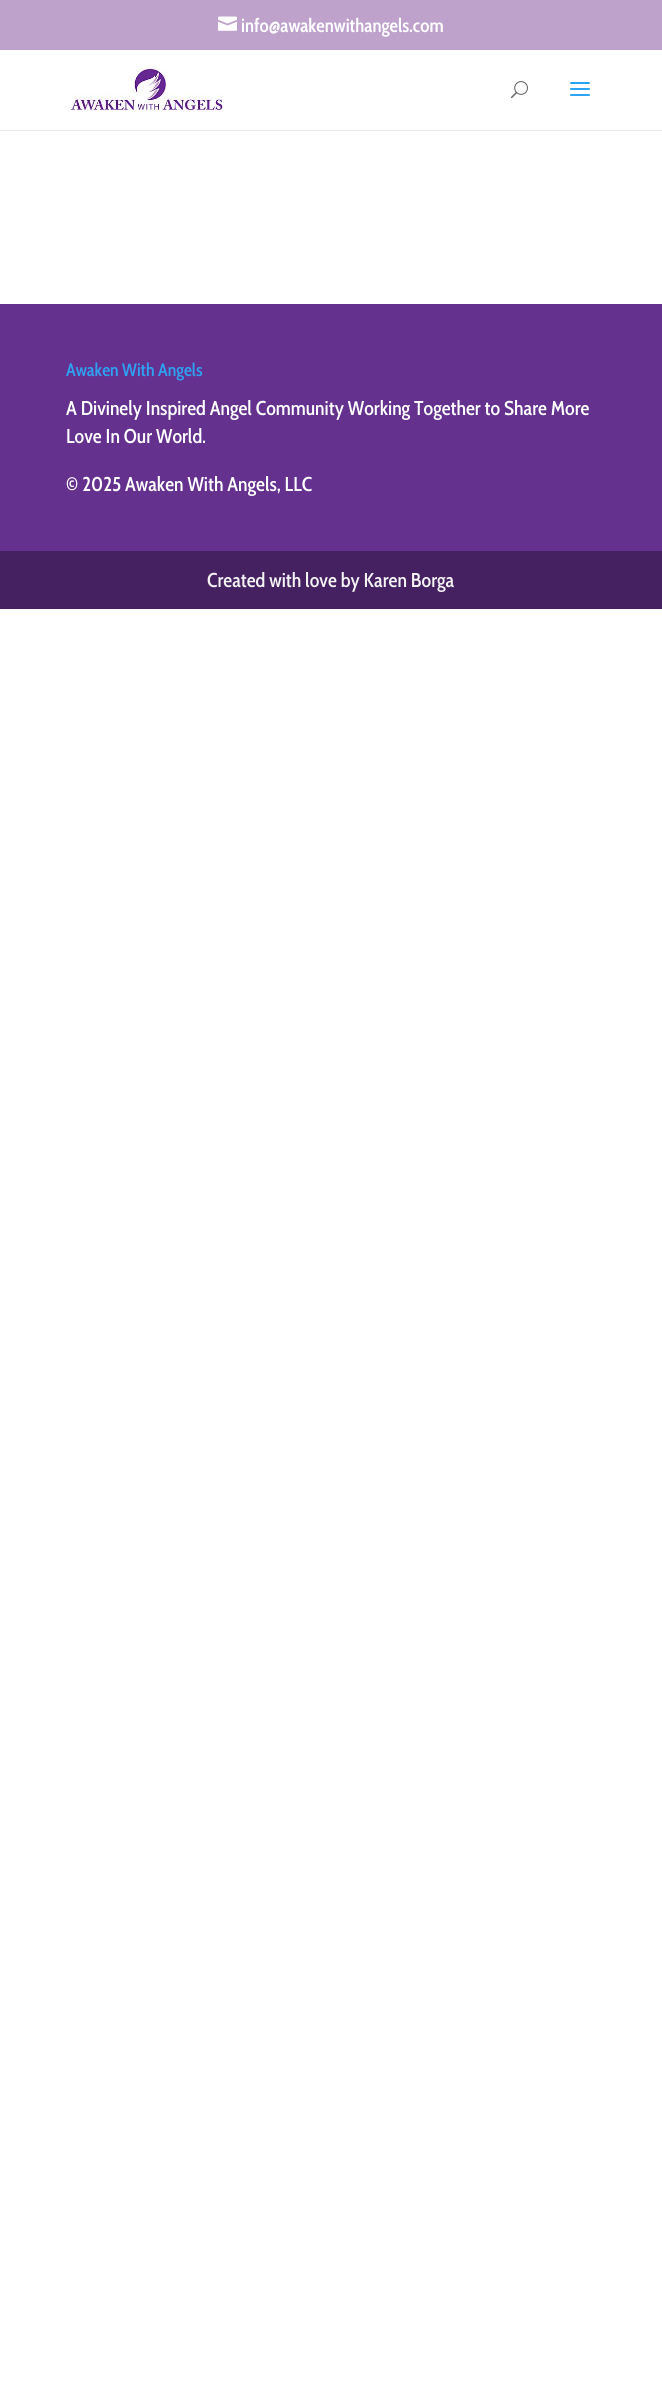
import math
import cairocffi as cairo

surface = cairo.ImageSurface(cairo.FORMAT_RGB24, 662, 2408)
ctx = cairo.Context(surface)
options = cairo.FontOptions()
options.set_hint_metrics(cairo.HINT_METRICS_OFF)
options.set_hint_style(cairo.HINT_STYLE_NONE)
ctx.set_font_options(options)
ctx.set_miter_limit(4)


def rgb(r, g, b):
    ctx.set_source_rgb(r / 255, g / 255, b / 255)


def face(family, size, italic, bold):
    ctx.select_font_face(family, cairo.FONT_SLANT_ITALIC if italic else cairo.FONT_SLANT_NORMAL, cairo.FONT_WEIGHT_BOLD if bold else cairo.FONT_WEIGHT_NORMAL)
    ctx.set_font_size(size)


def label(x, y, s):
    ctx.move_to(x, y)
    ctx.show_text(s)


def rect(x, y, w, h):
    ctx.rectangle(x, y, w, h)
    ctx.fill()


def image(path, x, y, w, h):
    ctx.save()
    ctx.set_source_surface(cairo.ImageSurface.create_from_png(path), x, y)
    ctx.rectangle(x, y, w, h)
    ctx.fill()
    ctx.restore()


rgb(255, 255, 255)
ctx.paint()
rgb(190, 162, 203)
rect(0, 0, 662, 50)
image('image0.png', 218, 16, 19, 15)
face('Cabin Condensed SemiBold', 19, 0, 0)
rgb(255, 255, 255)
label(241, 32, 'info@awakenwithangels.com')
rgb(230, 230, 230)
rect(0, 130, 662, 1)
image('image1.png', 70, 68, 154, 43)
image('image2.png', 511, 81, 17, 18)
image('image3.png', 570, 82, 20, 14)
rgb(101, 49, 143)
rect(0, 304, 662, 247)
face('Cabin Condensed Medium', 18, 0, 0)
rgb(46, 163, 242)
label(66, 376, 'Awaken With Angels')
face('Cabin Condensed Medium', 20, 0, 0)
rgb(255, 255, 255)
label(66, 415, 'A Divinely Inspired Angel Community Working Together to Share More')
label(66, 443, 'Love In Our World.')
label(66, 491, '© 2025 Awaken With Angels, LLC')
rgb(69, 33, 97)
rect(0, 551, 662, 58)
rgb(244, 244, 244)
label(207, 587, 'Created with love by Karen Borga')
surface.write_to_png('render.png')
